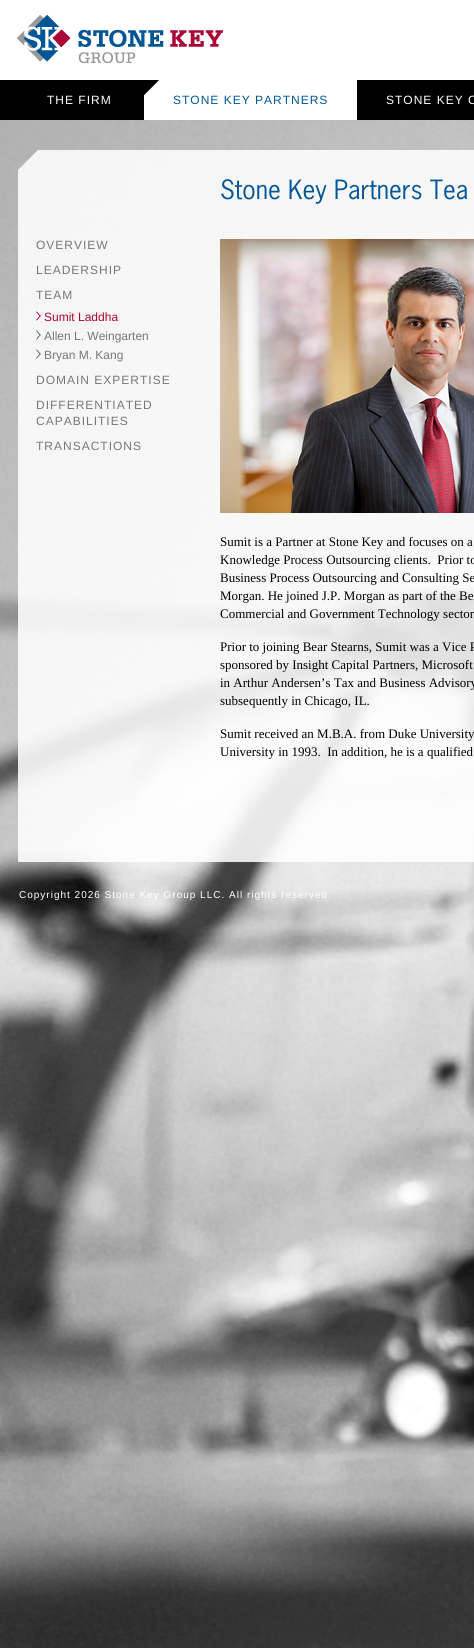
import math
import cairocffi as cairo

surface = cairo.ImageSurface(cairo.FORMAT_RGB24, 474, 1648)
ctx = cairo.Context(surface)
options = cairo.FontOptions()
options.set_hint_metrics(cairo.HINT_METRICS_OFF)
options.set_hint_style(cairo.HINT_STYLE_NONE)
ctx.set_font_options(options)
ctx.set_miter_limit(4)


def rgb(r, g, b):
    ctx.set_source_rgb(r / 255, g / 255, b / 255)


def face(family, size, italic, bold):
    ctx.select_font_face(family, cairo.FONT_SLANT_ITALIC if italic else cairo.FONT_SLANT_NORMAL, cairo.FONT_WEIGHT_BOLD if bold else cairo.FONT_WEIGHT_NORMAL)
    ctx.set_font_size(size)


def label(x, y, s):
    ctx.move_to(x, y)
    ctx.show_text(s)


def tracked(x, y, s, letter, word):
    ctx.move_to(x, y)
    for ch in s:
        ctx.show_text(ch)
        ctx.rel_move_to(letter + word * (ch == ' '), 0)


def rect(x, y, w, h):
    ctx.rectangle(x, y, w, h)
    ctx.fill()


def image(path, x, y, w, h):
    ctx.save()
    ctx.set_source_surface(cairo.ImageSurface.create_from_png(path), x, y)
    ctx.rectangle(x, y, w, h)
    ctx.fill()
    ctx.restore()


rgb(255, 255, 255)
ctx.paint()
image('image0.png', 17, 15, 206, 48)
rgb(0, 0, 0)
rect(0, 80, 474, 40)
face('Liberation Sans', 12, 0, 0)
rgb(255, 255, 255)
tracked(47, 104, 'THE FIRM', 1, 0)
image('image1.png', 144, 80, 213, 40)
rgb(0, 86, 150)
tracked(173, 104, 'STONE KEY PARTNERS', 1, 0)
rgb(255, 255, 255)
tracked(386, 104, 'STONE KEY C', 1, 0)
image('image7.png', 0, 120, 474, 1528)
image('image2.png', 18, 150, 456, 712)
rgb(119, 119, 119)
tracked(36, 249, 'OVERVIEW', 1, 0)
tracked(36, 274, 'LEADERSHIP', 1, 0)
tracked(36, 299, 'TEAM', 1, 0)
image('image3.png', 36, 311, 5, 10)
rgb(171, 5, 52)
label(44, 321, 'Sumit Laddha')
image('image4.png', 36, 330, 5, 10)
rgb(119, 119, 119)
label(44, 340, 'Allen L. Weingarten')
image('image5.png', 36, 349, 5, 10)
label(44, 359, 'Bryan M. Kang')
tracked(36, 384, 'DOMAIN EXPERTISE', 1, 0)
tracked(36, 409, 'DIFFERENTIATED', 1, 0)
tracked(36, 425, 'CAPABILITIES', 1, 0)
tracked(36, 450, 'TRANSACTIONS', 1, 0)
face('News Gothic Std', 25, 0, 0)
rgb(0, 86, 150)
label(220, 199, 'Stone Key Partners Tea')
image('image6.png', 220, 239, 254, 274)
face('Liberation Serif', 13, 0, 0)
rgb(0, 0, 0)
label(220, 546, 'Sumit is a Partner at Stone Key and focuses on a')
label(220, 564, 'Knowledge Process Outsourcing clients.  Prior to')
label(220, 582, 'Business Process Outsourcing and Consulting Se')
label(220, 600, 'Morgan. He joined J.P. Morgan as part of the Be')
label(220, 618, 'Commercial and Government Technology sector')
label(220, 651, 'Prior to joining Bear Stearns, Sumit was a Vice P')
label(220, 669, 'sponsored by Insight Capital Partners, Microsoft')
label(220, 687, 'in Arthur Andersen’s Tax and Business Advisory')
label(220, 705, 'subsequently in Chicago, IL.')
label(220, 738, 'Sumit received an M.B.A. from Duke University')
label(220, 756, 'University in 1993.  In addition, he is a qualified')
face('Liberation Sans', 10, 0, 0)
rgb(255, 255, 255)
tracked(19, 898, 'Copyright 2026 Stone Key Group LLC. All rights reserved.', 1, 0)
surface.write_to_png('render.png')
